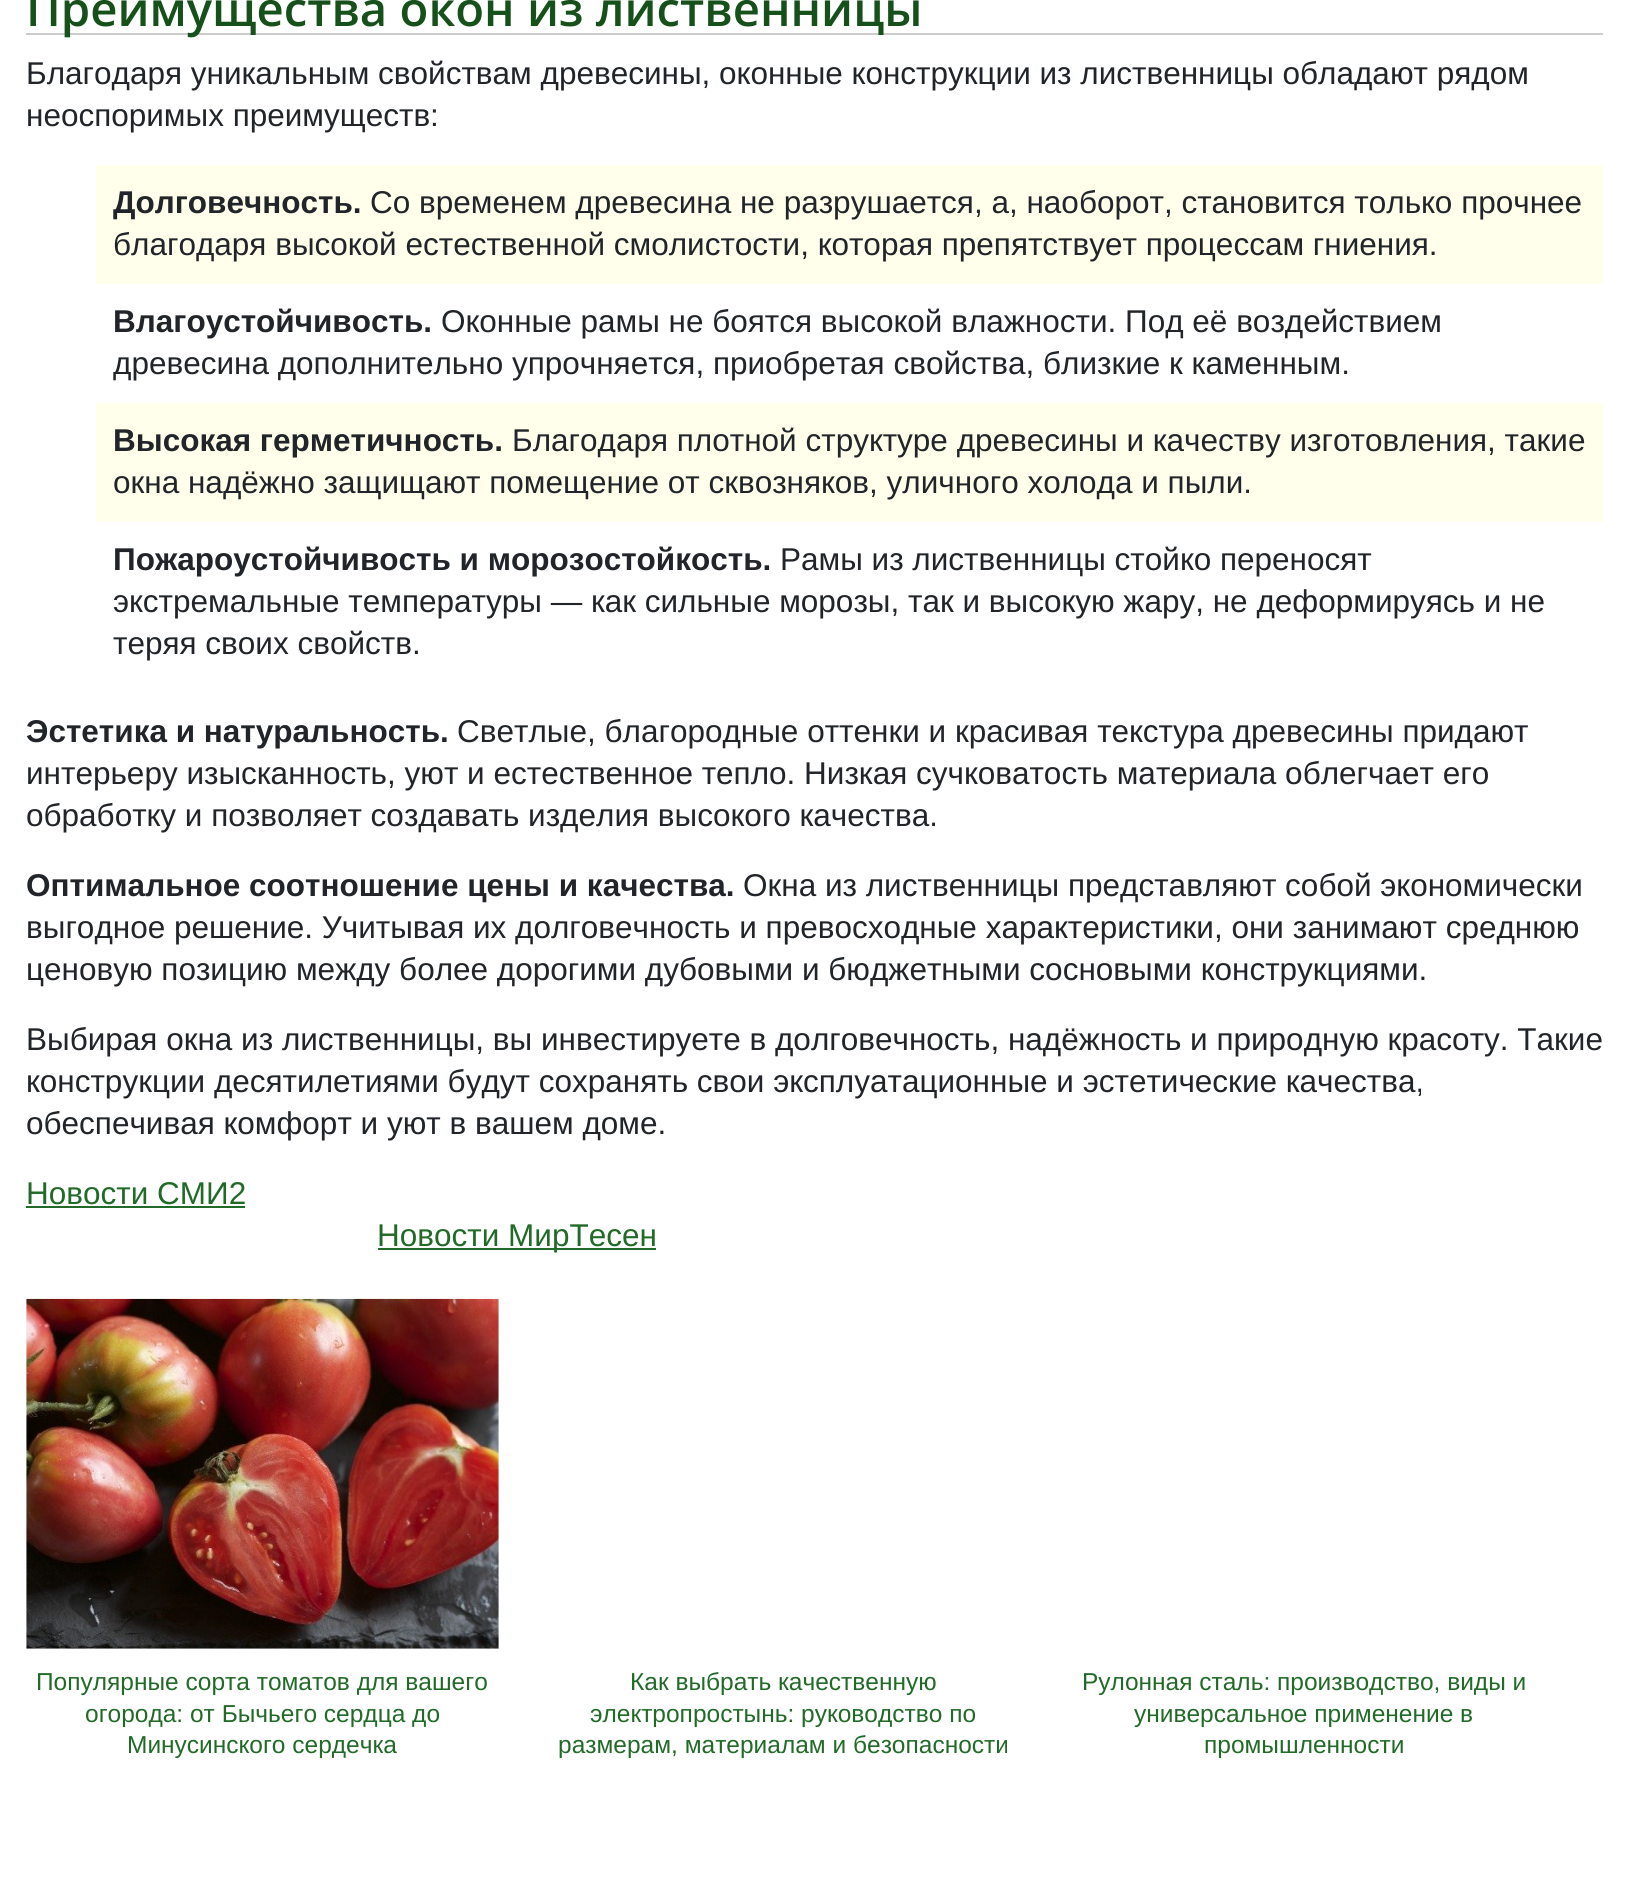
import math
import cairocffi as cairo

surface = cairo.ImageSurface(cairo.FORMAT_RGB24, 1628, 1889)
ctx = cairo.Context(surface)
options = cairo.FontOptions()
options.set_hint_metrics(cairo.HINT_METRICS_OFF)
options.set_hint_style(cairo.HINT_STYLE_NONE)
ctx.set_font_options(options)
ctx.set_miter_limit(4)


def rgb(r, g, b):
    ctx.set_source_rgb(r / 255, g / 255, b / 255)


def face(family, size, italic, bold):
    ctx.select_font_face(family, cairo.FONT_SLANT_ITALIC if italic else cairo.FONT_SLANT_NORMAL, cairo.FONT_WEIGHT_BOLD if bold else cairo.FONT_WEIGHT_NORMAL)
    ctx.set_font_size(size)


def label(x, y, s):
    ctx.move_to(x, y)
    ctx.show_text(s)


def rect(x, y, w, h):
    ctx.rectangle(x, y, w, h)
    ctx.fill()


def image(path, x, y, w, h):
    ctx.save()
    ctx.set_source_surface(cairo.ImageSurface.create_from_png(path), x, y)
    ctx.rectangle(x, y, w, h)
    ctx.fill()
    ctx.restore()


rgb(255, 255, 255)
ctx.paint()
rgb(204, 204, 204)
rect(26, 33, 1577, 2)
face('Open Sans SemiBold', 47.25, 0, 0)
rgb(22, 80, 27)
label(26, 26, 'Преимущества окон из лиственницы')
face('Liberation Sans', 31.5, 0, 0)
rgb(33, 37, 41)
label(26, 84, 'Благодаря уникальным свойствам древесины, оконные конструкции из лиственницы обладают рядом')
label(26, 126, 'неоспоримых преимуществ:')
rgb(255, 255, 236)
rect(96, 165, 1507, 119)
face('Liberation Sans', 31.5, 0, 1)
rgb(33, 37, 41)
label(113, 213, 'Долговечность.')
face('Liberation Sans', 31.5, 0, 0)
label(370, 213, 'Со временем древесина не разрушается, а, наоборот, становится только прочнее')
label(113, 255, 'благодаря высокой естественной смолистости, которая препятствует процессам гниения.')
face('Liberation Sans', 31.5, 0, 1)
label(113, 332, 'Влагоустойчивость.')
face('Liberation Sans', 31.5, 0, 0)
label(441, 332, 'Оконные рамы не боятся высокой влажности. Под её воздействием')
label(113, 374, 'древесина дополнительно упрочняется, приобретая свойства, близкие к каменным.')
rgb(255, 255, 236)
rect(96, 403, 1507, 119)
face('Liberation Sans', 31.5, 0, 1)
rgb(33, 37, 41)
label(113, 451, 'Высокая герметичность.')
face('Liberation Sans', 31.5, 0, 0)
label(512, 451, 'Благодаря плотной структуре древесины и качеству изготовления, такие')
label(113, 493, 'окна надёжно защищают помещение от сквозняков, уличного холода и пыли.')
face('Liberation Sans', 31.5, 0, 1)
label(113, 570, 'Пожароустойчивость и морозостойкость.')
face('Liberation Sans', 31.5, 0, 0)
label(780, 570, 'Рамы из лиственницы стойко переносят')
label(113, 612, 'экстремальные температуры — как сильные морозы, так и высокую жару, не деформируясь и не')
label(113, 654, 'теряя своих свойств.')
face('Liberation Sans', 31.5, 0, 1)
label(26, 742, 'Эстетика и натуральность.')
face('Liberation Sans', 31.5, 0, 0)
label(457, 742, 'Светлые, благородные оттенки и красивая текстура древесины придают')
label(26, 784, 'интерьеру изысканность, уют и естественное тепло. Низкая сучковатость материала облегчает его')
label(26, 826, 'обработку и позволяет создавать изделия высокого качества.')
face('Liberation Sans', 31.5, 0, 1)
label(26, 896, 'Оптимальное соотношение цены и качества.')
face('Liberation Sans', 31.5, 0, 0)
label(743, 896, 'Окна из лиственницы представляют собой экономически')
label(26, 938, 'выгодное решение. Учитывая их долговечность и превосходные характеристики, они занимают среднюю')
label(26, 980, 'ценовую позицию между более дорогими дубовыми и бюджетными сосновыми конструкциями.')
label(26, 1050, 'Выбирая окна из лиственницы, вы инвестируете в долговечность, надёжность и природную красоту. Такие')
label(26, 1092, 'конструкции десятилетиями будут сохранять свои эксплуатационные и эстетические качества,')
label(26, 1134, 'обеспечивая комфорт и уют в вашем доме.')
rgb(34, 106, 40)
label(26, 1204, 'Новости СМИ2')
rect(26, 1206, 219, 2)
rect(378, 1248, 278, 2)
label(377, 1246, 'Новости МирТесен')
image('image0.png', 26, 1298, 473, 351)
face('Liberation Sans', 24.5, 0, 0)
label(36, 1690, 'Популярные сорта томатов для вашего')
label(85, 1722, 'огорода: от Бычьего сердца до')
label(127, 1753, 'Минусинского сердечка')
label(630, 1690, 'Как выбрать качественную')
label(590, 1722, 'электропростынь: руководство по')
label(558, 1753, 'размерам, материалам и безопасности')
label(1082, 1690, 'Рулонная сталь: производство, виды и')
label(1134, 1722, 'универсальное применение в')
label(1204, 1753, 'промышленности')
surface.write_to_png('render.png')
